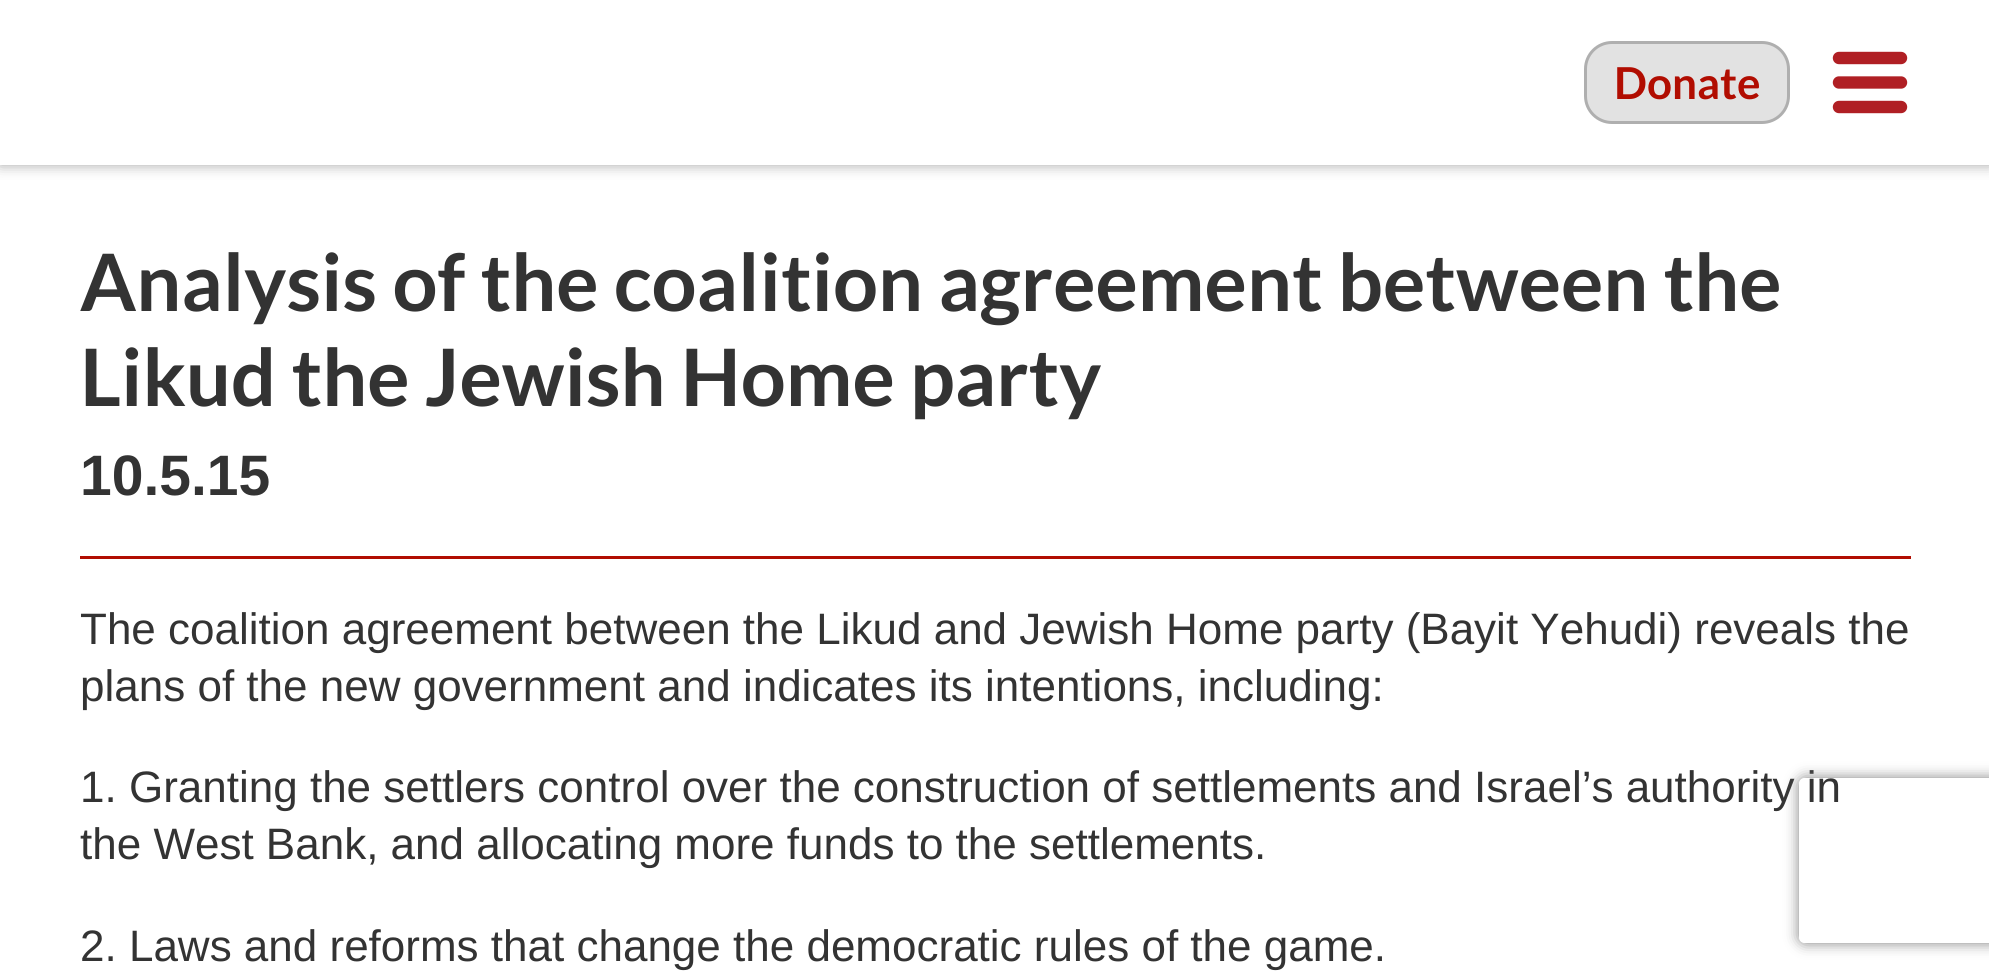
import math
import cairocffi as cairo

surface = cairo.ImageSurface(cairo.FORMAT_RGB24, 1989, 980)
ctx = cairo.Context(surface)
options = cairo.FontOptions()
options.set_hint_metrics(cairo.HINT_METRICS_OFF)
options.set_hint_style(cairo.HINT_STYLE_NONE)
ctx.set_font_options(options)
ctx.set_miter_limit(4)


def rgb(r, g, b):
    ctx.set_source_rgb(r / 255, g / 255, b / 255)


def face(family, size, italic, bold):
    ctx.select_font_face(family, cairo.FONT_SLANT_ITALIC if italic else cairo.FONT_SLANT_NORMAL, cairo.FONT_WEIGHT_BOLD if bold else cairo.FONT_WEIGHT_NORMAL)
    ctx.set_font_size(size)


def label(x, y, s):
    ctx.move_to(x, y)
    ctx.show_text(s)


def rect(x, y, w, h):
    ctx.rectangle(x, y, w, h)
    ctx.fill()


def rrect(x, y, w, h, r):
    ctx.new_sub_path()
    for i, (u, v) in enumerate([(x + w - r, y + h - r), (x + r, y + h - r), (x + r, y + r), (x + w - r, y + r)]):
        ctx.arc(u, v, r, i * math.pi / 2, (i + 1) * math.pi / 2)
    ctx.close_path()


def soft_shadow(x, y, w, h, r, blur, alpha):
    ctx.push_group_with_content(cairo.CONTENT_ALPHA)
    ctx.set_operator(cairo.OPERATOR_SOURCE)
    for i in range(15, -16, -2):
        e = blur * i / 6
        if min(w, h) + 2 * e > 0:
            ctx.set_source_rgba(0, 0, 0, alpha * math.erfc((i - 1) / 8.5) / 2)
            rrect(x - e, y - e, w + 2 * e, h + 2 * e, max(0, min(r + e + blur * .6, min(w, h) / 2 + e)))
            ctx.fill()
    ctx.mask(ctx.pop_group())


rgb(255, 255, 255)
ctx.paint()
rgb(0, 0, 0)
soft_shadow(0, 0, 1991, 165, 0, 7, 0.35)
rgb(255, 255, 255)
rect(0, 0, 1989, 165)
rgb(226, 226, 226)
rrect(1585.5, 42.5, 203, 80, 26.5)
ctx.fill_preserve()
rgb(175, 175, 175)
ctx.set_line_width(3)
ctx.stroke()
face('Lato', 44, 0, 1)
rgb(177, 13, 1)
label(1614, 99, 'Donate')
ctx.new_path()
ctx.move_to(1839, 58)
ctx.line_to(1901, 58)
rgb(176, 31, 36)
ctx.set_line_width(12.4)
ctx.set_line_cap(cairo.LINE_CAP_ROUND)
ctx.stroke()
ctx.new_path()
ctx.move_to(1839, 82.5)
ctx.line_to(1901, 82.5)
ctx.stroke()
ctx.new_path()
ctx.move_to(1839, 107)
ctx.line_to(1901, 107)
ctx.stroke()
face('Lato', 79.2, 0, 1)
rgb(51, 51, 51)
label(80, 311, 'Analysis of the coalition agreement between the')
label(80, 406, 'Likud the Jewish Home party')
face('Liberation Sans', 57, 0, 1)
label(80, 495, '10.5.15')
rgb(177, 13, 1)
rect(80, 556, 1831, 3)
face('Liberation Sans', 44, 0, 0)
rgb(51, 51, 51)
label(80, 644, 'The coalition agreement between the Likud and Jewish Home party (Bayit Yehudi) reveals the')
label(80, 701, 'plans of the new government and indicates its intentions, including:')
label(80, 802, '1. Granting the settlers control over the construction of settlements and Israel’s authority in')
label(80, 859, 'the West Bank, and allocating more funds to the settlements.')
label(80, 961, '2. Laws and reforms that change the democratic rules of the game.')
ctx.save()
ctx.set_fill_rule(cairo.FILL_RULE_EVEN_ODD)
ctx.new_path()
ctx.move_to(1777, 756)
ctx.line_to(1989, 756)
ctx.line_to(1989, 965)
ctx.line_to(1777, 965)
ctx.close_path()
ctx.move_to(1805, 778)
ctx.line_to(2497, 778)
ctx.curve_to(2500.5, 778, 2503, 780.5, 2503, 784)
ctx.line_to(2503, 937)
ctx.curve_to(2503, 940.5, 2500.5, 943, 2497, 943)
ctx.line_to(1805, 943)
ctx.curve_to(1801.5, 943, 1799, 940.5, 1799, 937)
ctx.line_to(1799, 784)
ctx.curve_to(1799, 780.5, 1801.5, 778, 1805, 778)
ctx.close_path()
ctx.clip()
rgb(128, 128, 128)
soft_shadow(1799, 778, 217, 165, 6, 7, 1)
ctx.restore()
surface.write_to_png('render.png')
